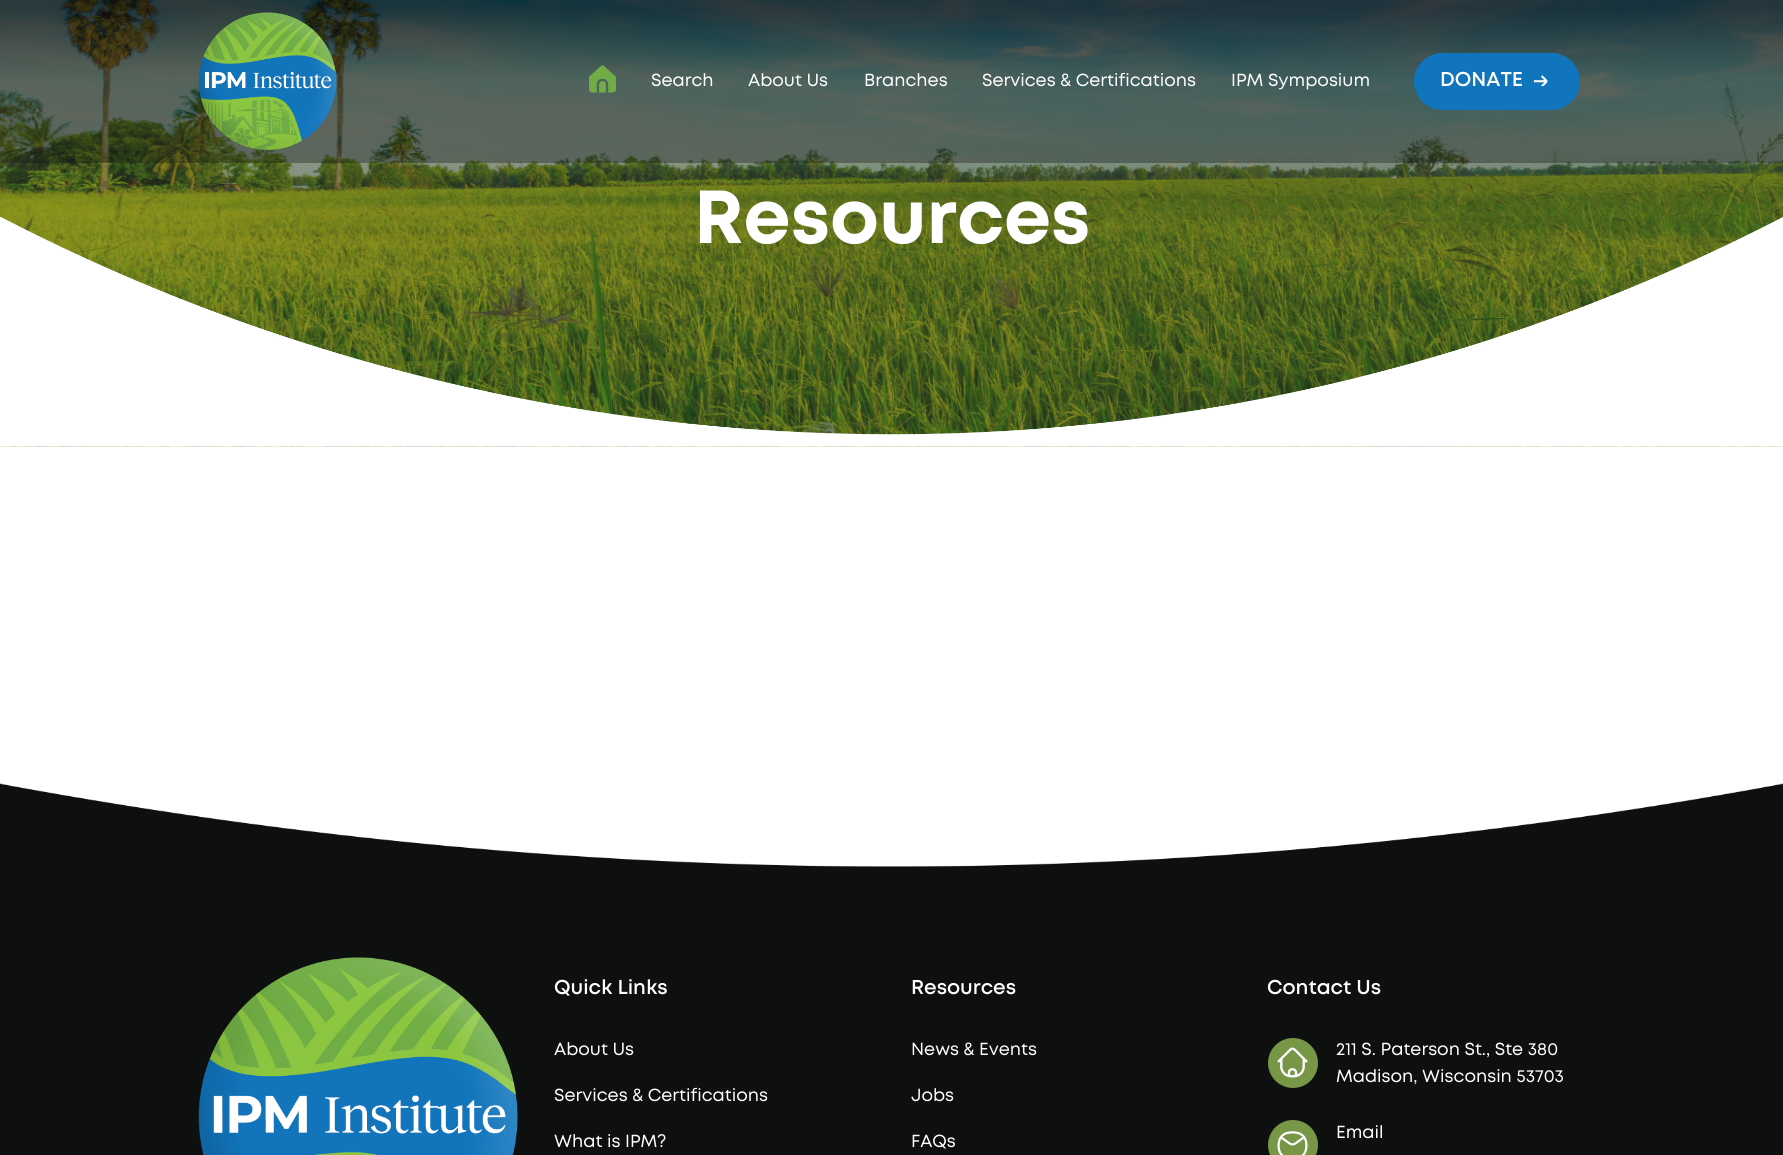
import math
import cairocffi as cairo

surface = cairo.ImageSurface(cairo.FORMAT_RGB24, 1783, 1155)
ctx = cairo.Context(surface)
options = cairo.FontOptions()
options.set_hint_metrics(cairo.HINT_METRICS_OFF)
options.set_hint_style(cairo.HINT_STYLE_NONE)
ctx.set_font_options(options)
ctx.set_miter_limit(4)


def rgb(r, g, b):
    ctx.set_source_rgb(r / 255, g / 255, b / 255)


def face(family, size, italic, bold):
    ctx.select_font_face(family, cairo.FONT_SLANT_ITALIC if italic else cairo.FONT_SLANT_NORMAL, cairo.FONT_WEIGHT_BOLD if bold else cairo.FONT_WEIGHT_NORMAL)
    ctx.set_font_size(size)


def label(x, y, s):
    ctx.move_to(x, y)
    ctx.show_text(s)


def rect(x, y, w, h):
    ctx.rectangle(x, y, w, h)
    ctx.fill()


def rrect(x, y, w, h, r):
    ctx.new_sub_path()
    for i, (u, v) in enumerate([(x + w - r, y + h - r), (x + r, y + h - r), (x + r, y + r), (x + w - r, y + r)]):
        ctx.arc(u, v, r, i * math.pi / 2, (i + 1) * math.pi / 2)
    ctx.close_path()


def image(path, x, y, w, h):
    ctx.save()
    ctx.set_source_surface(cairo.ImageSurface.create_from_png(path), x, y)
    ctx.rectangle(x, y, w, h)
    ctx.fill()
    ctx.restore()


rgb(255, 255, 255)
ctx.paint()
image('image3.png', 0, 0, 1783, 447)
ctx.set_source_rgba(0.055, 0.059, 0.059, 0.35)
rect(0, 0, 1783, 163)
image('image0.png', 198, 12, 139, 138)
image('image1.png', 589, 65, 27, 28)
face('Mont', 17.5, 0, 0)
rgb(255, 255, 255)
label(651, 86, 'Search')
label(748, 86, 'About Us')
label(864, 86, 'Branches')
label(982, 86, 'Services & Certifications')
label(1231, 86, 'IPM Symposium')
rgb(16, 117, 189)
rrect(1414.5, 53.5, 165, 56, 28)
ctx.fill_preserve()
ctx.set_line_width(1)
ctx.stroke()
face('Mont SemiBold', 20, 0, 0)
rgb(255, 255, 255)
label(1440, 86, 'DONATE')
image('image2.png', 1533, 75, 15, 11)
face('Mont', 75, 0, 1)
label(694, 243, 'Resources')
image('image4.png', 0, 216, 1783, 231)
image('image5.png', 0, 783, 1783, 120)
rgb(14, 15, 15)
rect(0, 903, 1783, 252)
image('image6.png', 198, 957, 320, 198)
face('Mont SemiBold', 20, 0, 0)
rgb(255, 255, 255)
label(554, 994, 'Quick Links')
face('Mont', 17.5, 0, 0)
label(554, 1055, 'About Us')
label(554, 1101, 'Services & Certifications')
label(554, 1147, 'What is IPM?')
face('Mont SemiBold', 20, 0, 0)
label(911, 994, 'Resources')
face('Mont', 17.5, 0, 0)
label(911, 1055, 'News & Events')
label(911, 1101, 'Jobs')
label(911, 1147, 'FAQs')
face('Mont SemiBold', 20, 0, 0)
label(1267, 994, 'Contact Us')
image('image7.png', 1268, 1038, 50, 50)
face('Mont', 17.5, 0, 0)
label(1336, 1055, '211 S. Paterson St., Ste 380')
label(1336, 1082, 'Madison, Wisconsin 53703')
image('image8.png', 1268, 1120, 50, 35)
label(1336, 1138, 'Email')
surface.write_to_png('render.png')
